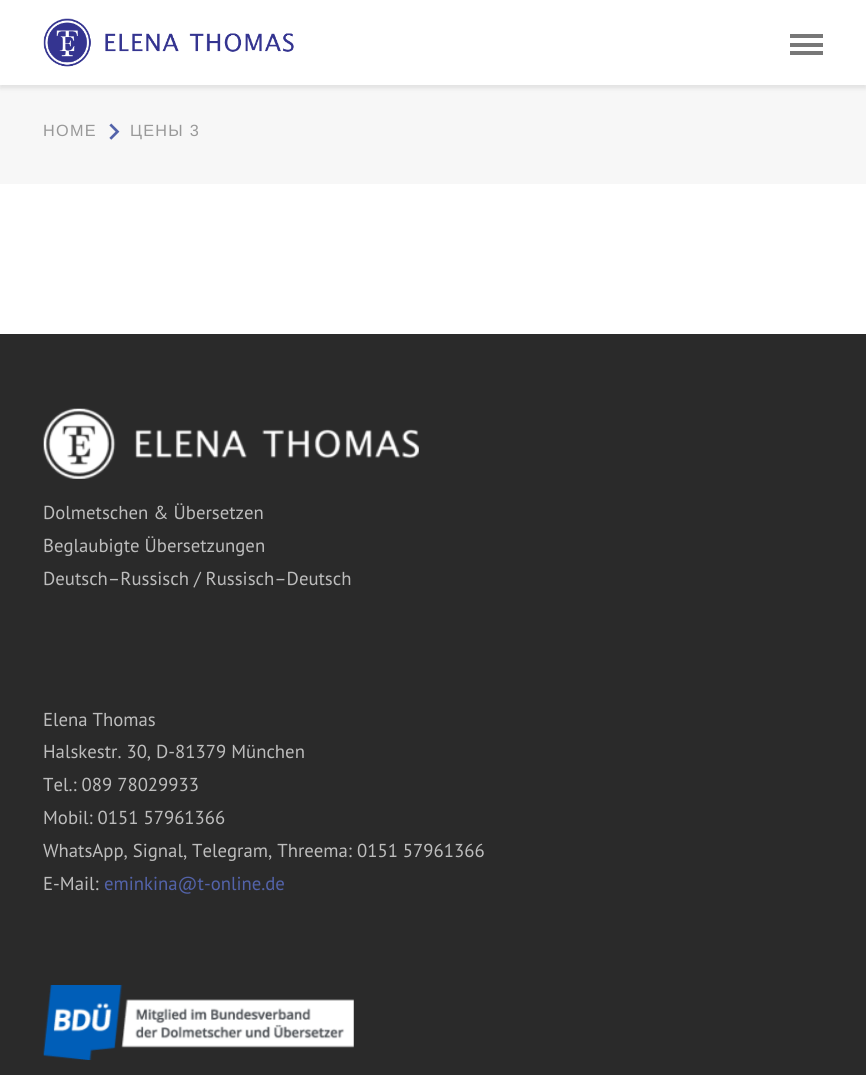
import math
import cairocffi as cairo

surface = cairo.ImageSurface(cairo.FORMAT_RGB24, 866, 1075)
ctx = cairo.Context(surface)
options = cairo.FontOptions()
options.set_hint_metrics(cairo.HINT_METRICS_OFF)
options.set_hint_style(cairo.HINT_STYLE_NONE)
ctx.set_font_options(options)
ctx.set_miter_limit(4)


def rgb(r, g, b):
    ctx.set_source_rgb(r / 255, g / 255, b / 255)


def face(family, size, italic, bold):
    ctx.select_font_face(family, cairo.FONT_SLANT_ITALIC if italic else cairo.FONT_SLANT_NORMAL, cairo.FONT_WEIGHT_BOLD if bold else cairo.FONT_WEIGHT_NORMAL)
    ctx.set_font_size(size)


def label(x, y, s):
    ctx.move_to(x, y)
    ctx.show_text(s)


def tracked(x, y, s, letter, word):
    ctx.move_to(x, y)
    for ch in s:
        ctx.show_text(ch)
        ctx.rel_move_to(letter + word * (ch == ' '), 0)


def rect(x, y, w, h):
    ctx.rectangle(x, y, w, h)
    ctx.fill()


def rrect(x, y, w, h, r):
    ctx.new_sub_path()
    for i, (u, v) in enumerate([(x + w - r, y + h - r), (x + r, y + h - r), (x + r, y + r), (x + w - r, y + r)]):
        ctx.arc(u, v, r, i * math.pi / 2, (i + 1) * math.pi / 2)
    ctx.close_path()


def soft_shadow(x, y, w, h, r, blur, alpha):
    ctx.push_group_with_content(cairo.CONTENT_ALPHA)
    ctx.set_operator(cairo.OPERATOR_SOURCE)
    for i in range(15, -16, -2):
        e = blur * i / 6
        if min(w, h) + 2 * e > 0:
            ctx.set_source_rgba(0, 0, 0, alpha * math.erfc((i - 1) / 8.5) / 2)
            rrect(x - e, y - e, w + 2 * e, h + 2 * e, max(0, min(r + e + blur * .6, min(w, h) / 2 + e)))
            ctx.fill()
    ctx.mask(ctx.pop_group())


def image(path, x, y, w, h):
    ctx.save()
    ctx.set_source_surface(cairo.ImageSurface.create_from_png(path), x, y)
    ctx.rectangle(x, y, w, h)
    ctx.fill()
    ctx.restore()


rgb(255, 255, 255)
ctx.paint()
rgb(247, 247, 247)
rect(0, 85, 866, 99)
rgb(0, 0, 0)
soft_shadow(0, 3, 866, 85, 0, 2.5, 0.1)
rgb(255, 255, 255)
rect(0, 0, 866, 85)
image('image0.png', 43, 18, 251, 49)
rgb(119, 119, 119)
rect(790, 34, 33, 4)
rect(790, 43, 33, 4)
rect(790, 51, 33, 4)
face('Liberation Sans', 16.25, 0, 0)
rgb(153, 153, 153)
tracked(43, 136, 'HOME', 1.25, 0)
image('image1.png', 109, 123, 11, 17)
tracked(130, 136, 'ЦЕНЫ 3', 1.25, 0)
rgb(42, 42, 42)
rect(0, 334, 866, 741)
image('image2.png', 43, 408, 376, 71)
face('PT Sans', 18.75, 0, 0)
rgb(189, 189, 189)
label(43, 519, 'Dolmetschen & Übersetzen')
label(43, 552, 'Beglaubigte Übersetzungen')
label(43, 585, 'Deutsch–Russisch / Russisch–Deutsch')
label(43, 726, 'Elena Thomas')
label(43, 758, 'Halskestr. 30, D-81379 München')
label(43, 791, 'Tel.: 089 78029933')
label(43, 824, 'Mobil: 0151 57961366')
label(43, 857, 'WhatsApp, Signal, Telegram, Threema: 0151 57961366')
label(43, 890, 'E-Mail:')
rgb(83, 99, 170)
label(104, 890, 'eminkina@t-online.de')
image('image3.png', 43, 985, 311, 75)
surface.write_to_png('render.png')
